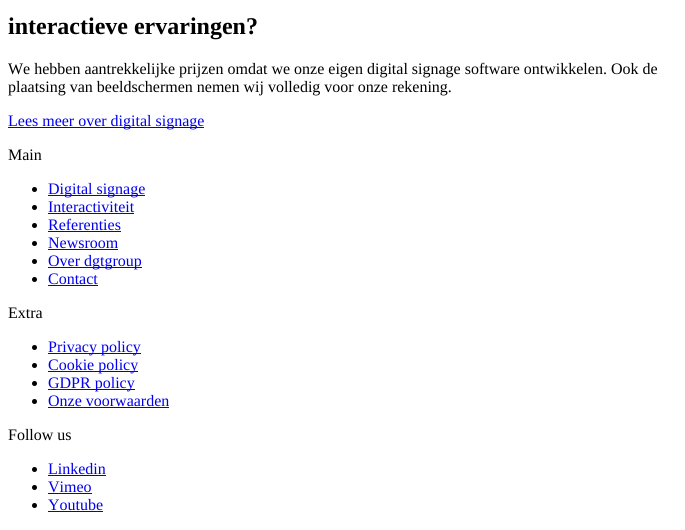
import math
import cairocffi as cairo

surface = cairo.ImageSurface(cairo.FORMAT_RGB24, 685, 530)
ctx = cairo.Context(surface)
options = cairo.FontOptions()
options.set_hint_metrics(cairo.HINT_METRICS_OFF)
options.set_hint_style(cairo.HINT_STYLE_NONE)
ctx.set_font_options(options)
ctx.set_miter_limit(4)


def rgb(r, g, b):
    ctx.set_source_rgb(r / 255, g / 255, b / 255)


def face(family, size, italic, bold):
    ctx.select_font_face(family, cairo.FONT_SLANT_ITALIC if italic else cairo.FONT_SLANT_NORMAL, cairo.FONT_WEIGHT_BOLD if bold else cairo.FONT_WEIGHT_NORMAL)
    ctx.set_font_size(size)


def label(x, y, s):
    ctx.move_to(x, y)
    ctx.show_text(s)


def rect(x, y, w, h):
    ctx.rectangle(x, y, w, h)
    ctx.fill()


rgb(255, 255, 255)
ctx.paint()
face('Liberation Serif', 24, 0, 1)
rgb(0, 0, 0)
label(8, 34, 'interactieve ervaringen?')
face('Liberation Serif', 16, 0, 0)
label(8, 74, 'We hebben aantrekkelijke prijzen omdat we onze eigen digital signage software ontwikkelen. Ook de')
label(8, 92, 'plaatsing van beeldschermen nemen wij volledig voor onze rekening.')
rgb(0, 0, 238)
rect(8, 127, 196, 1)
label(8, 126, 'Lees meer over digital signage')
rgb(0, 0, 0)
label(8, 160, 'Main')
ctx.new_path()
ctx.arc(34.5, 189.5, 2.5, 0, 2 * math.pi)
ctx.fill()
rgb(0, 0, 238)
rect(48, 195, 97, 1)
label(48, 194, 'Digital signage')
rgb(0, 0, 0)
ctx.new_path()
ctx.arc(34.5, 207.5, 2.5, 0, 2 * math.pi)
ctx.fill()
rgb(0, 0, 238)
label(48, 212, 'Interactiviteit')
rect(48, 213, 86, 1)
rgb(0, 0, 0)
ctx.new_path()
ctx.arc(34.5, 225.5, 2.5, 0, 2 * math.pi)
ctx.fill()
rgb(0, 0, 238)
label(48, 230, 'Referenties')
rect(48, 231, 73, 1)
rgb(0, 0, 0)
ctx.new_path()
ctx.arc(34.5, 243.5, 2.5, 0, 2 * math.pi)
ctx.fill()
rgb(0, 0, 238)
label(48, 248, 'Newsroom')
rect(48, 249, 70, 1)
rgb(0, 0, 0)
ctx.new_path()
ctx.arc(34.5, 261.5, 2.5, 0, 2 * math.pi)
ctx.fill()
rgb(0, 0, 238)
rect(48, 267, 94, 1)
label(48, 266, 'Over dgtgroup')
rgb(0, 0, 0)
ctx.new_path()
ctx.arc(34.5, 279.5, 2.5, 0, 2 * math.pi)
ctx.fill()
rgb(0, 0, 238)
label(48, 284, 'Contact')
rect(48, 285, 50, 1)
rgb(0, 0, 0)
label(8, 318, 'Extra')
ctx.new_path()
ctx.arc(34.5, 347.5, 2.5, 0, 2 * math.pi)
ctx.fill()
rgb(0, 0, 238)
rect(48, 353, 93, 1)
label(48, 352, 'Privacy policy')
rgb(0, 0, 0)
ctx.new_path()
ctx.arc(34.5, 365.5, 2.5, 0, 2 * math.pi)
ctx.fill()
rgb(0, 0, 238)
rect(48, 371, 90, 1)
label(48, 370, 'Cookie policy')
rgb(0, 0, 0)
ctx.new_path()
ctx.arc(34.5, 383.5, 2.5, 0, 2 * math.pi)
ctx.fill()
rgb(0, 0, 238)
rect(48, 389, 87, 1)
label(48, 388, 'GDPR policy')
rgb(0, 0, 0)
ctx.new_path()
ctx.arc(34.5, 401.5, 2.5, 0, 2 * math.pi)
ctx.fill()
rgb(0, 0, 238)
label(48, 406, 'Onze voorwaarden')
rect(48, 407, 121, 1)
rgb(0, 0, 0)
label(8, 440, 'Follow us')
ctx.new_path()
ctx.arc(34.5, 469.5, 2.5, 0, 2 * math.pi)
ctx.fill()
rgb(0, 0, 238)
label(48, 474, 'Linkedin')
rect(48, 475, 58, 1)
rgb(0, 0, 0)
ctx.new_path()
ctx.arc(34.5, 487.5, 2.5, 0, 2 * math.pi)
ctx.fill()
rgb(0, 0, 238)
label(48, 492, 'Vimeo')
rect(48, 493, 44, 1)
rgb(0, 0, 0)
ctx.new_path()
ctx.arc(34.5, 505.5, 2.5, 0, 2 * math.pi)
ctx.fill()
rgb(0, 0, 238)
label(48, 510, 'Youtube')
rect(48, 511, 55, 1)
surface.write_to_png('render.png')
